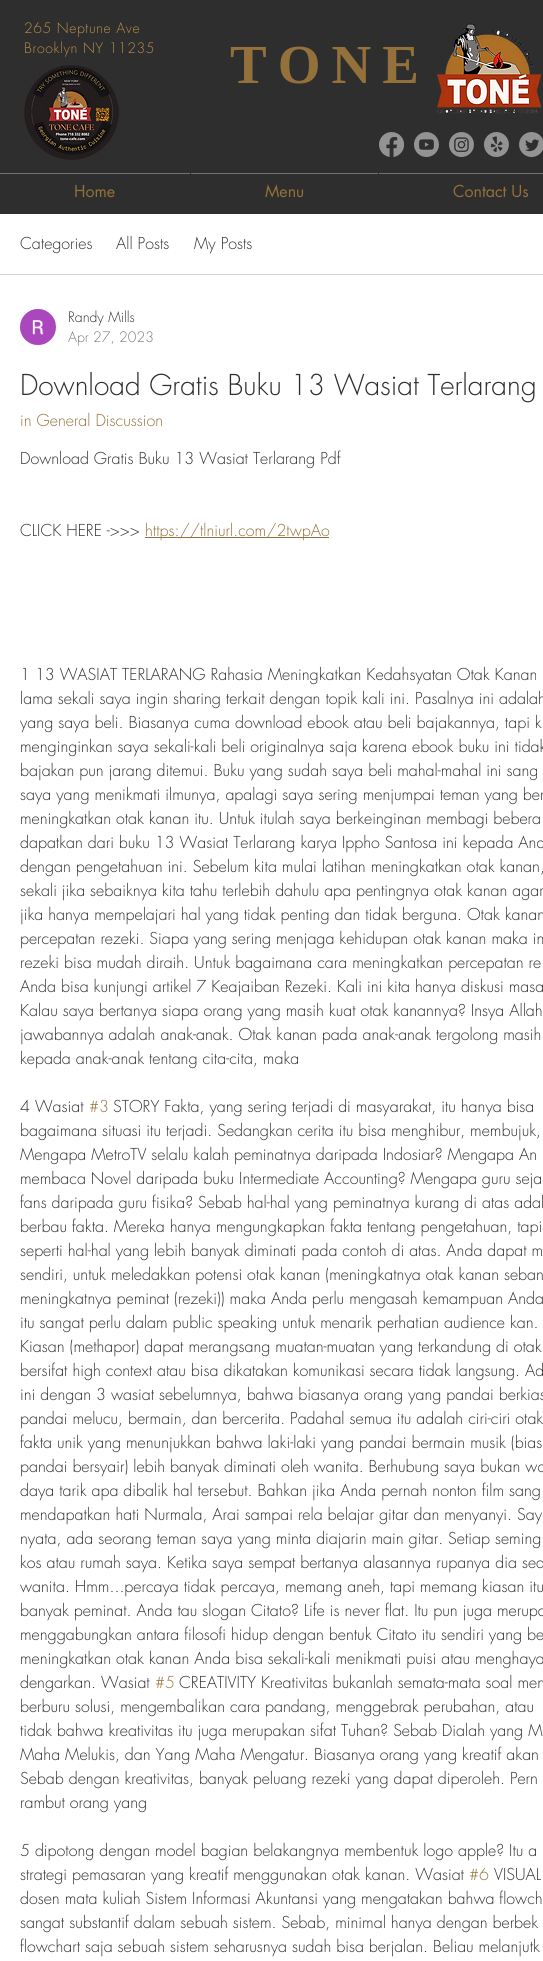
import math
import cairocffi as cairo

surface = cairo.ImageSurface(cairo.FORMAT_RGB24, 543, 1961)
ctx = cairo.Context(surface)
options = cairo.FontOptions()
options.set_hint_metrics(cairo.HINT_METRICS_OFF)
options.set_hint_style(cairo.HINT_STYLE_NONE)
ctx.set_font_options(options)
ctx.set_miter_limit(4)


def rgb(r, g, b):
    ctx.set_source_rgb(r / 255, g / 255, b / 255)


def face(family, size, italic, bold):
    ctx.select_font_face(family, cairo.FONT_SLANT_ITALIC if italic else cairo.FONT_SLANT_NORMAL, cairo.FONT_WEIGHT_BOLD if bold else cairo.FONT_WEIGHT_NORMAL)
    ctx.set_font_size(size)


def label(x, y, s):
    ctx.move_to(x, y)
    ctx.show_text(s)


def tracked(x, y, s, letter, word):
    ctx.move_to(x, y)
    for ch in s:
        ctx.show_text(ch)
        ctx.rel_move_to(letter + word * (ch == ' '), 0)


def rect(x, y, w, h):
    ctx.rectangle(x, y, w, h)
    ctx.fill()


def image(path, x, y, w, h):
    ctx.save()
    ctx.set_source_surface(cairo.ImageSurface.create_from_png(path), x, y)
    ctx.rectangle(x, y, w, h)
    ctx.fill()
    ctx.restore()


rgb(255, 255, 255)
ctx.paint()
rgb(47, 46, 46)
rect(0, 0, 543, 214)
face('futura Light', 14, 0, 0)
rgb(185, 141, 75)
tracked(24, 33, '265 Neptune Ave', 0.6, 0)
tracked(24, 53, 'Brooklyn NY 11235', 0.6, 0)
face('Liberation Serif', 55, 0, 1)
rgb(148, 112, 58)
tracked(230, 83, 'TONE', 11, 0)
image('image0.png', 437, 23, 105, 91)
image('image1.png', 24, 65, 95, 95)
image('image2.png', 379, 132, 25, 25)
image('image3.png', 414, 132, 25, 25)
image('image4.png', 449, 132, 25, 25)
image('image5.png', 484, 132, 25, 25)
image('image6.png', 519, 132, 24, 25)
rgb(115, 114, 114)
rect(0, 173, 543, 1)
face('futura', 16, 0, 0)
rgb(148, 112, 58)
label(74, 197, 'Home')
rgb(47, 46, 46)
rect(190, 173, 1, 1)
rgb(148, 112, 58)
label(265, 197, 'Menu')
rgb(47, 46, 46)
rect(378, 173, 1, 1)
rgb(148, 112, 58)
label(453, 197, 'Contact Us')
rgb(213, 213, 213)
rect(0, 274, 543, 1)
face('futura Light', 16, 0, 0)
rgb(47, 46, 46)
label(20, 249, 'Categories')
label(116, 249, 'All Posts')
label(194, 249, 'My Posts')
image('image7.png', 20, 309, 36, 36)
face('futura Light', 14, 0, 0)
label(68, 322, 'Randy Mills')
rgb(122, 121, 121)
label(68, 342, 'Apr 27, 2023')
face('futura Light', 28, 0, 0)
rgb(47, 46, 46)
label(20, 395, 'Download Gratis Buku 13 Wasiat Terlarang')
face('futura Light', 16, 0, 0)
rgb(148, 112, 58)
label(20, 426, 'in General Discussion')
rgb(47, 46, 46)
label(20, 464, 'Download Gratis Buku 13 Wasiat Terlarang Pdf')
label(20, 536, 'CLICK HERE ->>>')
rgb(148, 112, 58)
rect(145, 537, 184, 1)
label(145, 536, 'https://tlniurl.com/2twpAo')
rgb(47, 46, 46)
label(20, 680, '1 13 WASIAT TERLARANG Rahasia Meningkatkan Kedahsyatan Otak Kanan')
label(20, 704, 'lama sekali saya ingin sharing terkait dengan topik kali ini. Pasalnya ini adalah')
label(20, 728, 'yang saya beli. Biasanya cuma download ebook atau beli bajakannya, tapi k')
label(20, 752, 'menginginkan saya sekali-kali beli originalnya saja karena ebook buku ini tidak')
label(20, 776, 'bajakan pun jarang ditemui. Buku yang sudah saya beli mahal-mahal ini sang')
label(20, 800, 'saya yang menikmati ilmunya, apalagi saya sering menjumpai teman yang ber')
label(20, 824, 'meningkatkan otak kanan itu. Untuk itulah saya berkeinginan membagi bebera')
label(20, 848, 'dapatkan dari buku 13 Wasiat Terlarang karya Ippho Santosa ini kepada And')
label(20, 872, 'dengan pengetahuan ini. Sebelum kita mulai latihan meningkatkan otak kanan,')
label(20, 896, 'sekali jika sebaiknya kita tahu terlebih dahulu apa pentingnya otak kanan agar')
label(20, 920, 'jika hanya mempelajari hal yang tidak penting dan tidak berguna. Otak kanan')
label(20, 944, 'percepatan rezeki. Siapa yang sering menjaga kehidupan otak kanan maka in')
label(20, 968, 'rezeki bisa mudah diraih. Untuk bagaimana cara meningkatkan percepatan re')
label(20, 992, 'Anda bisa kunjungi artikel 7 Keajaiban Rezeki. Kali ini kita hanya diskusi masa')
label(20, 1016, 'Kalau saya bertanya siapa orang yang masih kuat otak kanannya? Insya Allah')
label(20, 1040, 'jawabannya adalah anak-anak. Otak kanan pada anak-anak tergolong masih')
label(20, 1064, 'kepada anak-anak tentang cita-cita, maka')
label(20, 1112, '4 Wasiat')
rgb(148, 112, 58)
label(89, 1112, '#3')
rgb(47, 46, 46)
label(113, 1112, 'STORY Fakta, yang sering terjadi di masyarakat, itu hanya bisa')
label(20, 1136, 'bagaimana situasi itu terjadi. Sedangkan cerita itu bisa menghibur, membujuk,')
label(20, 1160, 'Mengapa MetroTV selalu kalah peminatnya daripada Indosiar? Mengapa An')
label(20, 1184, 'membaca Novel daripada buku Intermediate Accounting? Mengapa guru seja')
label(20, 1208, 'fans daripada guru fisika? Sebab hal-hal yang peminatnya kurang di atas adal')
label(20, 1232, 'berbau fakta. Mereka hanya mengungkapkan fakta tentang pengetahuan, tapi')
label(20, 1256, 'seperti hal-hal yang lebih banyak diminati pada contoh di atas. Anda dapat m')
label(20, 1280, 'sendiri, untuk meledakkan potensi otak kanan (meningkatnya otak kanan seban')
label(20, 1304, 'meningkatnya peminat (rezeki)) maka Anda perlu mengasah kemampuan Anda')
label(20, 1328, 'itu sangat perlu dalam public speaking untuk menarik perhatian audience kan.')
label(20, 1352, 'Kiasan (methapor) dapat merangsang muatan-muatan yang terkandung di otak')
label(20, 1376, 'bersifat high context atau bisa dikatakan komunikasi secara tidak langsung. Ad')
label(20, 1400, 'ini dengan 3 wasiat sebelumnya, bahwa biasanya orang yang pandai berkias')
label(20, 1424, 'pandai melucu, bermain, dan bercerita. Padahal semua itu adalah ciri-ciri otak')
label(20, 1448, 'fakta unik yang menunjukkan bahwa laki-laki yang pandai bermain musik (bias')
label(20, 1472, 'pandai bersyair) lebih banyak diminati oleh wanita. Berhubung saya bukan wa')
label(20, 1496, 'daya tarik apa dibalik hal tersebut. Bahkan jika Anda pernah nonton film sang')
label(20, 1520, 'mendapatkan hati Nurmala, Arai sampai rela belajar gitar dan menyanyi. Say')
label(20, 1544, 'nyata, ada seorang teman saya yang minta diajarin main gitar. Setiap seming')
label(20, 1568, 'kos atau rumah saya. Ketika saya sempat bertanya alasannya rupanya dia sed')
label(20, 1592, 'wanita. Hmm...percaya tidak percaya, memang aneh, tapi memang kiasan itu')
label(20, 1616, 'banyak peminat. Anda tau slogan Citato? Life is never flat. Itu pun juga merupa')
label(20, 1640, 'menggabungkan antara filosofi hidup dengan bentuk Citato itu sendiri yang be')
label(20, 1664, 'meningkatkan otak kanan Anda bisa sekali-kali menikmati puisi atau menghaya')
label(20, 1688, 'dengarkan. Wasiat')
rgb(148, 112, 58)
label(155, 1688, '#5')
rgb(47, 46, 46)
label(179, 1688, 'CREATIVITY Kreativitas bukanlah semata-mata soal men')
label(20, 1712, 'berburu solusi, mengembalikan cara pandang, menggebrak perubahan, atau')
label(20, 1736, 'tidak bahwa kreativitas itu juga merupakan sifat Tuhan? Sebab Dialah yang M')
label(20, 1760, 'Maha Melukis, dan Yang Maha Mengatur. Biasanya orang yang kreatif akan')
label(20, 1784, 'Sebab dengan kreativitas, banyak peluang rezeki yang dapat diperoleh. Pern')
label(20, 1808, 'rambut orang yang')
label(20, 1856, '5 dipotong dengan model bagian belakangnya membentuk logo apple? Itu a')
label(20, 1880, 'strategi pemasaran yang kreatif menggunakan otak kanan. Wasiat')
rgb(148, 112, 58)
label(469, 1880, '#6')
rgb(47, 46, 46)
label(494, 1880, 'VISUAL')
label(20, 1904, 'dosen mata kuliah Sistem Informasi Akuntansi yang mengatakan bahwa flowch')
label(20, 1928, 'sangat substantif dalam sebuah sistem. Sebab, minimal hanya dengan berbek')
label(20, 1952, 'flowchart saja sebuah sistem seharusnya sudah bisa berjalan. Beliau melanjutk')
surface.write_to_png('render.png')
